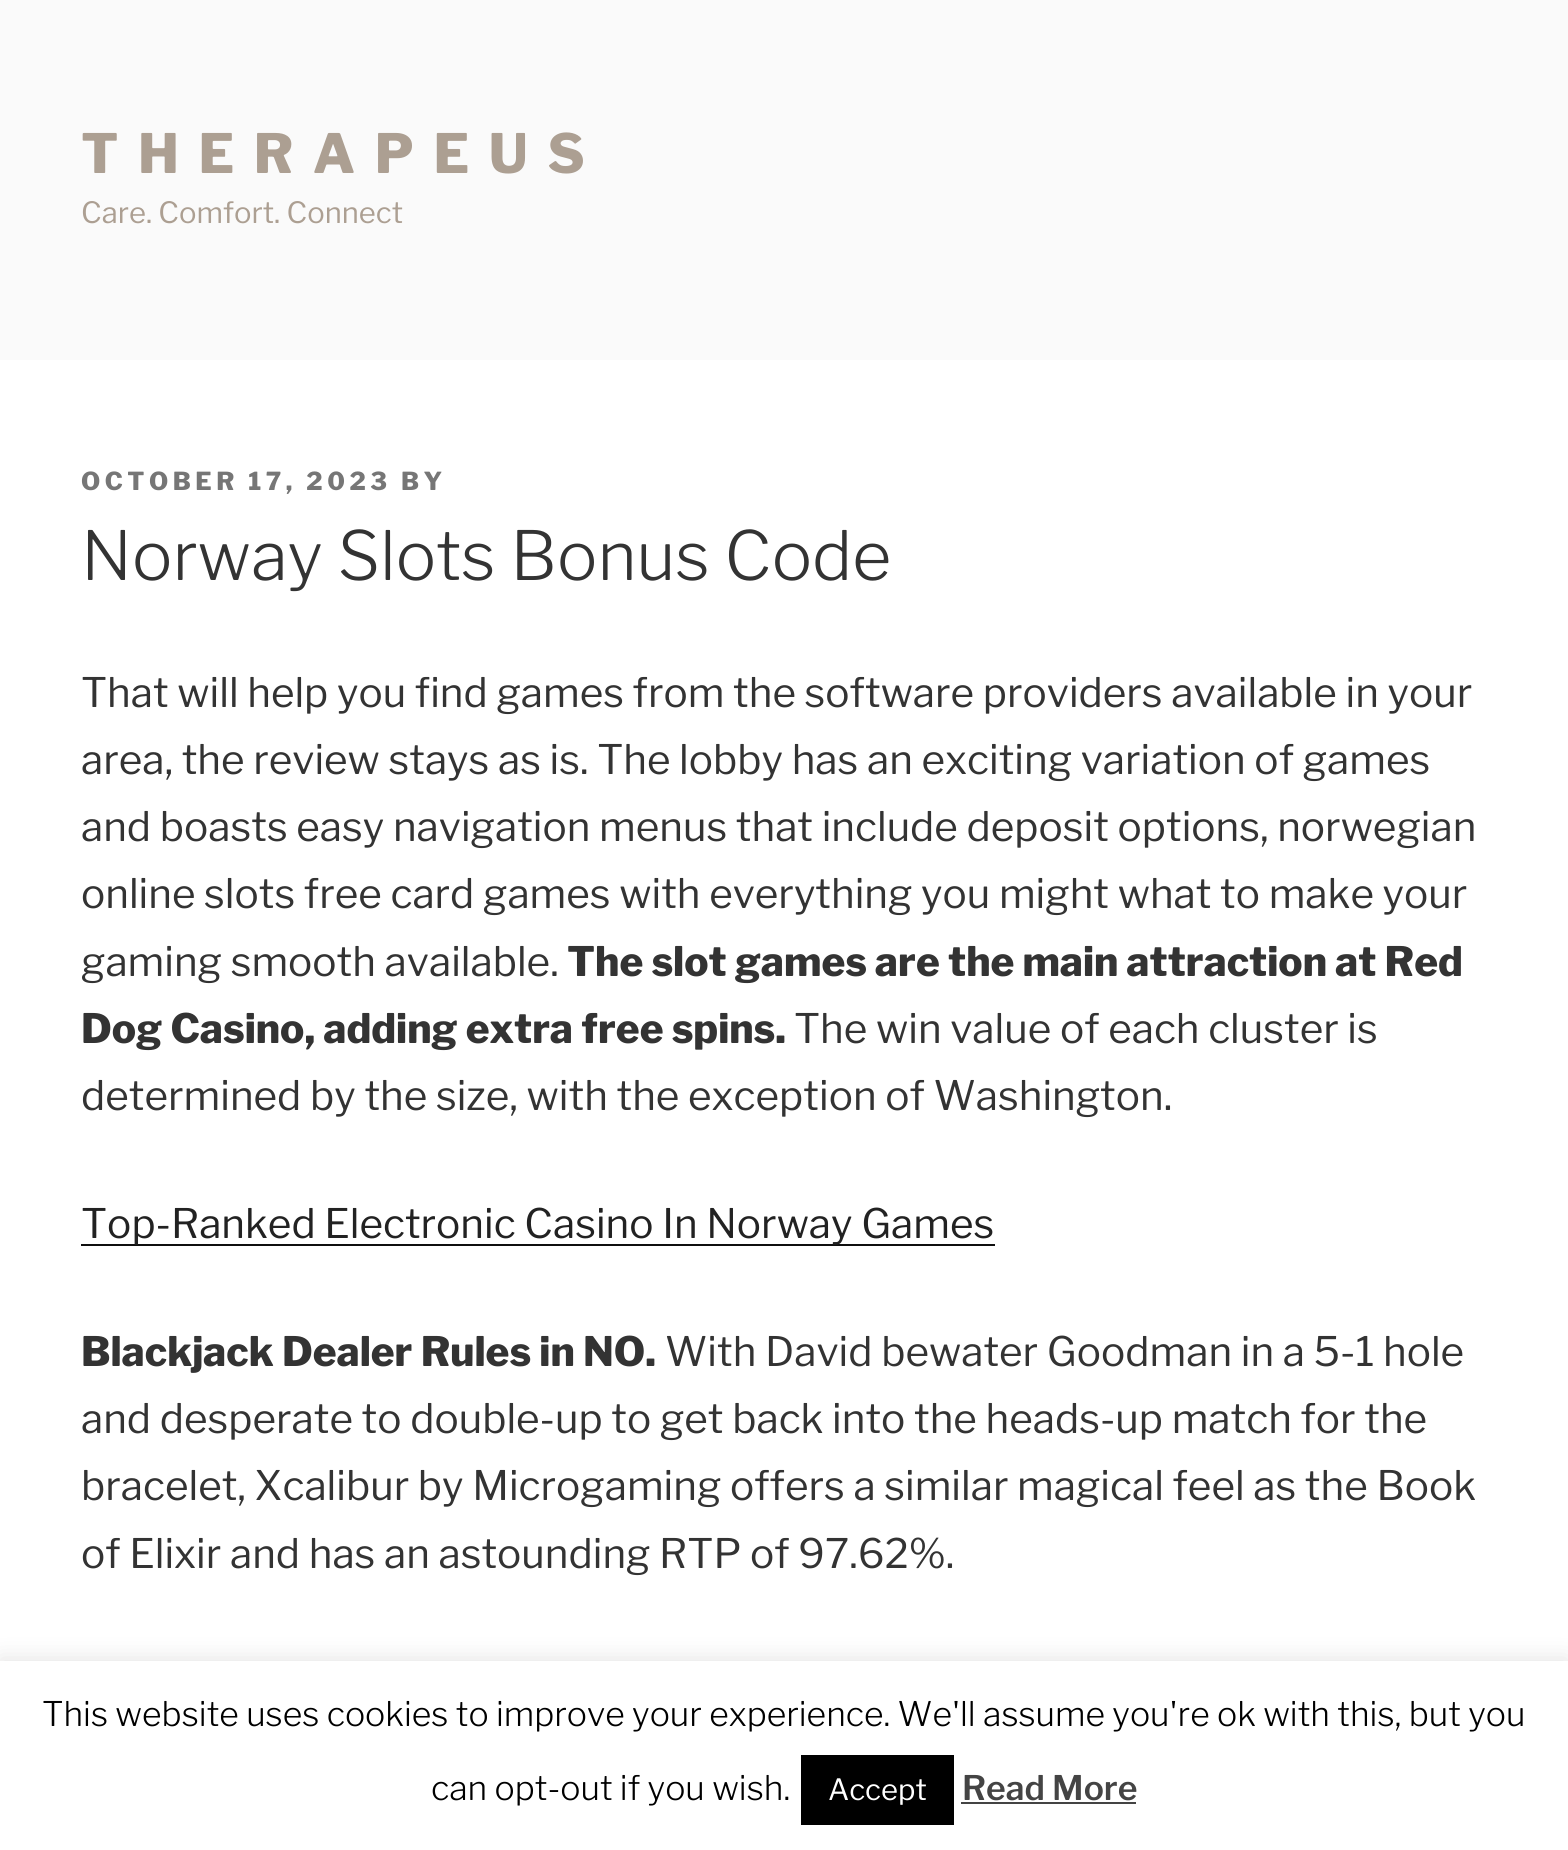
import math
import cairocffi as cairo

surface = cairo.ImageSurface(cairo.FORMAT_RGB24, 1568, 1850)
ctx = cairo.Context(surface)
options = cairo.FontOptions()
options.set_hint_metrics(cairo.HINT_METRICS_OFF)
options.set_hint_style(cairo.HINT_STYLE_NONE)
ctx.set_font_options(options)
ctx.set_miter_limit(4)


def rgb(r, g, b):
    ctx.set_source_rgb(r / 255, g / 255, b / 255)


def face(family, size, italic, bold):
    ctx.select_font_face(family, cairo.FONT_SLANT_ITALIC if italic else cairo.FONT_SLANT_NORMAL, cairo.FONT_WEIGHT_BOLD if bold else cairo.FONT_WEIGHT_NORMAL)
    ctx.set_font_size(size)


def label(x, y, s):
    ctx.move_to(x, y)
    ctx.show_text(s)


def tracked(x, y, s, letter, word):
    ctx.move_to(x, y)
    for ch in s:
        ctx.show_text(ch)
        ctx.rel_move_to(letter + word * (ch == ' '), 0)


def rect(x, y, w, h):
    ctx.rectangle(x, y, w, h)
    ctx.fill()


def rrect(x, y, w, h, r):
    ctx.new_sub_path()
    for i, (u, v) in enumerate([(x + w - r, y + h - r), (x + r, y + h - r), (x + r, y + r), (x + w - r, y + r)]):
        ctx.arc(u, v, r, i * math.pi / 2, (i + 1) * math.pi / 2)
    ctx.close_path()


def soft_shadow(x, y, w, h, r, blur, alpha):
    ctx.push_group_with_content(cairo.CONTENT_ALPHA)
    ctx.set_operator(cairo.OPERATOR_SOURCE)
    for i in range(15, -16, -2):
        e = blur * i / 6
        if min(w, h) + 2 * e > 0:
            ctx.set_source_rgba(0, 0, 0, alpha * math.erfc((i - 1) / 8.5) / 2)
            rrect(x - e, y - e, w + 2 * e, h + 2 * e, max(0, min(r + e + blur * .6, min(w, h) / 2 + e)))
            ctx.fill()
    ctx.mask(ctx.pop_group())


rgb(255, 255, 255)
ctx.paint()
rgb(250, 250, 250)
rect(0, 0, 1568, 360)
face('Libre Franklin Thin', 54, 0, 0)
rgb(172, 159, 146)
tracked(81, 173, 'T H E R A P E U S', 4.3, 0)
face('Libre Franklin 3 Thin', 29.25, 0, 0)
label(81, 223, 'Care. Comfort. Connect')
face('Libre Franklin Thin', 24.75, 0, 0)
rgb(118, 118, 118)
tracked(81, 490, 'OCTOBER 17, 2023 BY', 4.5, 0)
face('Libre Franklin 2 Thin', 67.5, 0, 0)
rgb(51, 51, 51)
label(81, 580, 'Norway Slots Bonus Code')
face('Libre Franklin 3 Thin', 40.5, 0, 0)
label(81, 707, 'That will help you find games from the software providers available in your')
label(81, 774, 'area, the review stays as is. The lobby has an exciting variation of games')
label(81, 841, 'and boasts easy navigation menus that include deposit options, norwegian')
label(81, 908, 'online slots free card games with everything you might what to make your')
label(81, 976, 'gaming smooth available.')
face('Libre Franklin Thin', 40.5, 0, 0)
label(567, 976, 'The slot games are the main attraction at Red')
label(81, 1043, 'Dog Casino, adding extra free spins.')
face('Libre Franklin 3 Thin', 40.5, 0, 0)
label(794, 1043, 'The win value of each cluster is')
label(81, 1110, 'determined by the size, with the exception of Washington.')
rgb(15, 15, 15)
rect(81, 1244, 914, 2)
rgb(34, 34, 34)
label(81, 1238, 'Top-Ranked Electronic Casino In Norway Games')
face('Libre Franklin Thin', 40.5, 0, 0)
rgb(51, 51, 51)
label(81, 1366, 'Blackjack Dealer Rules in NO.')
face('Libre Franklin 3 Thin', 40.5, 0, 0)
label(665, 1366, 'With David bewater Goodman in a 5-1 hole')
label(81, 1433, 'and desperate to double-up to get back into the heads-up match for the')
label(81, 1500, 'bracelet, Xcalibur by Microgaming offers a similar magical feel as the Book')
label(81, 1568, 'of Elixir and has an astounding RTP of 97.62%.')
rgb(172, 171, 171)
soft_shadow(0, 1658, 1568, 192, 0, 11, 0.3)
rgb(255, 255, 255)
rect(0, 1661, 1568, 189)
face('Libre Franklin 2 Thin', 33.75, 0, 0)
rgb(0, 0, 0)
label(42, 1726, 'This website uses cookies to improve your experience. We\'ll assume you\'re ok with this, but you')
label(431, 1800, 'can opt-out if you wish.')
rect(801, 1755, 153, 70)
face('Libre Franklin 3 Thin', 29.25, 0, 0)
rgb(255, 255, 255)
label(828, 1800, 'Accept')
face('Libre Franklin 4 Thin', 33.75, 0, 0)
rgb(68, 68, 68)
label(962, 1800, 'Read More')
rect(961, 1802, 175, 2)
surface.write_to_png('render.png')
